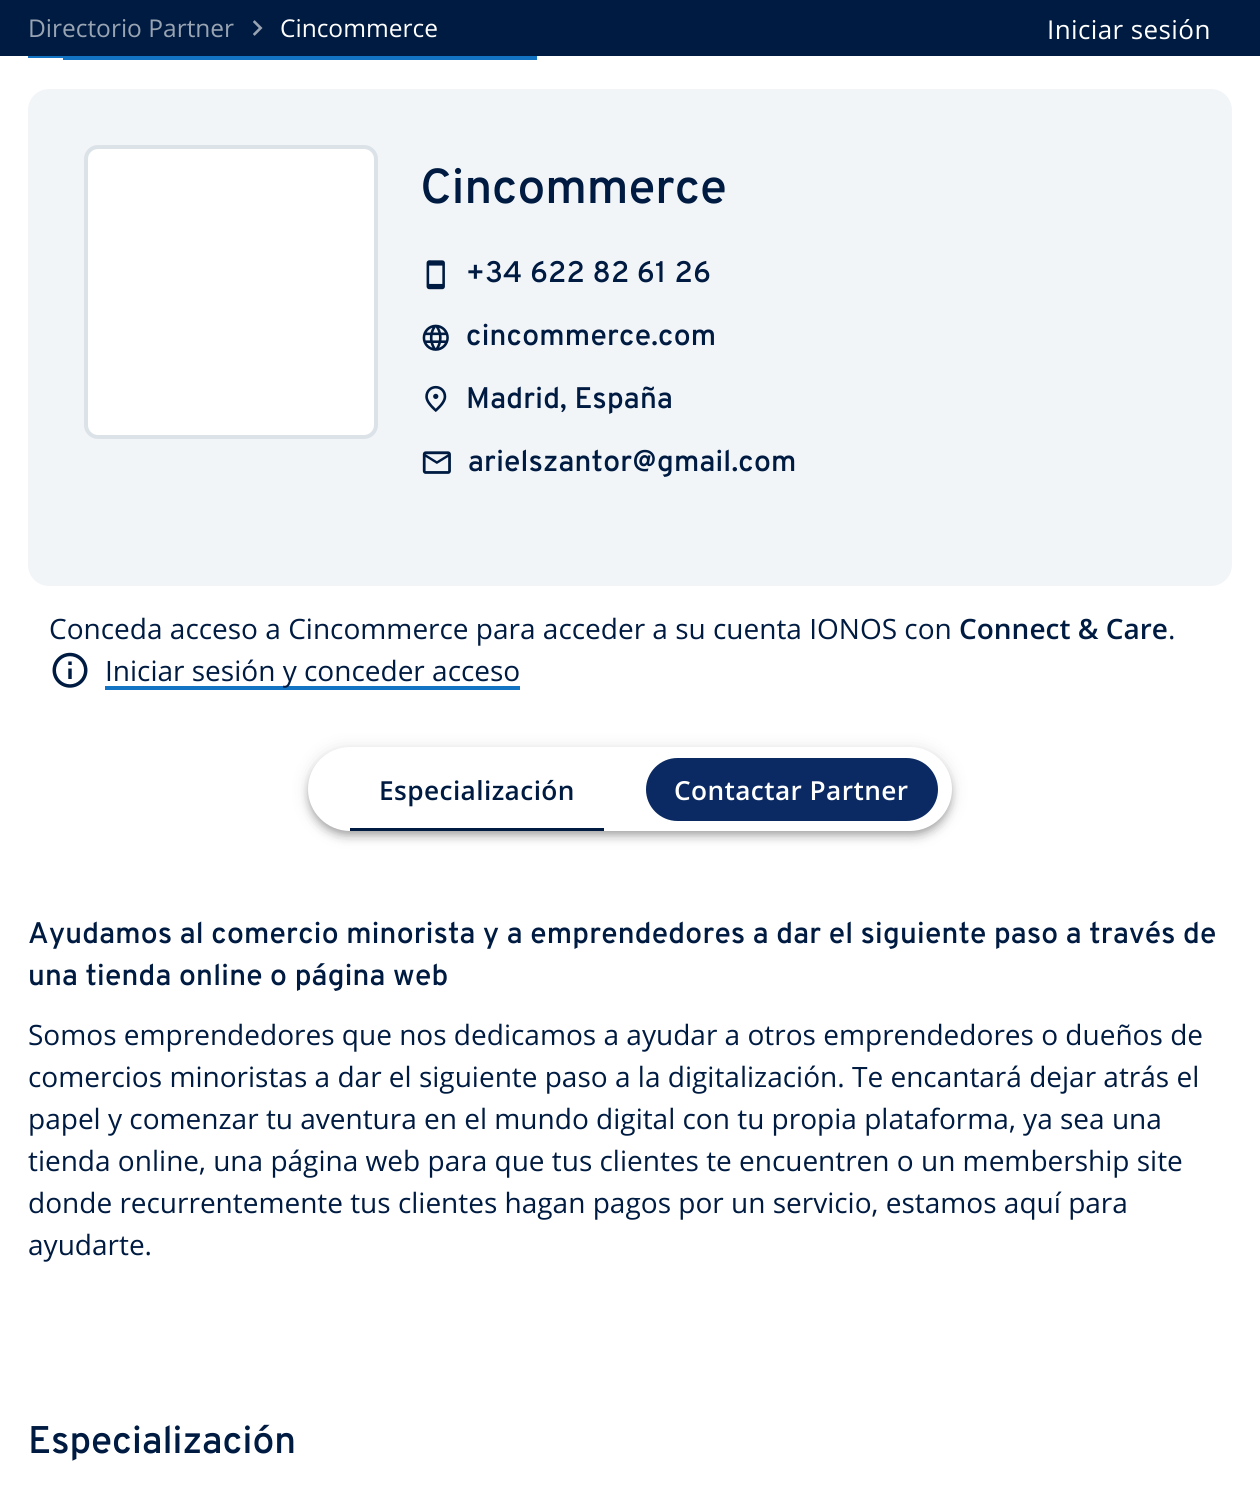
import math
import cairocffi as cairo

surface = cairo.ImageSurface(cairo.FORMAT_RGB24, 1260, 1499)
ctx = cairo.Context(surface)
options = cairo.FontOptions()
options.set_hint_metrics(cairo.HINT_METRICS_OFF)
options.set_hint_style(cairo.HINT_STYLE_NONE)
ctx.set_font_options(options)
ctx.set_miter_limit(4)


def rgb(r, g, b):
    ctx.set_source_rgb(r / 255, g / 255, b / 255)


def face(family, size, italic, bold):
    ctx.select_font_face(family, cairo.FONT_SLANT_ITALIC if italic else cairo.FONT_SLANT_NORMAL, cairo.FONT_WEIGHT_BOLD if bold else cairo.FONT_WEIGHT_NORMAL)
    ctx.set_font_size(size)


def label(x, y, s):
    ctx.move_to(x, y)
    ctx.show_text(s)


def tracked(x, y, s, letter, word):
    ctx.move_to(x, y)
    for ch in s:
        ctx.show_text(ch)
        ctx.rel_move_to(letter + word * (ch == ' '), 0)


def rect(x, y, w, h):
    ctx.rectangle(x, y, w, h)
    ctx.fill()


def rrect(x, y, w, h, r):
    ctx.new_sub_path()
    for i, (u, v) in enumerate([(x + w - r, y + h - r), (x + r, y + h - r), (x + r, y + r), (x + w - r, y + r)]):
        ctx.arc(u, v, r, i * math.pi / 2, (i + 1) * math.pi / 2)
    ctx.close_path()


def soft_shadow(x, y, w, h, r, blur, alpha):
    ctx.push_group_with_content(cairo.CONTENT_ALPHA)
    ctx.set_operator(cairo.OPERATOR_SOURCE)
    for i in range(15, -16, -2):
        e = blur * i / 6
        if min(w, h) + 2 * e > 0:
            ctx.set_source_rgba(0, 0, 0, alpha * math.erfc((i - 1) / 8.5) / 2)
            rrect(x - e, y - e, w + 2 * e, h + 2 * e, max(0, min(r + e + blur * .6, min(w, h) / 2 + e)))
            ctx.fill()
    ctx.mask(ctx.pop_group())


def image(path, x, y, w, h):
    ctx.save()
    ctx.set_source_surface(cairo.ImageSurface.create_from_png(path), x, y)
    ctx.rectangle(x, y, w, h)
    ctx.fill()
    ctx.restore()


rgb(255, 255, 255)
ctx.paint()
rgb(0, 27, 65)
rect(0, 0, 1260, 56)
face('Open Sans', 24.5, 0, 0)
rgb(153, 164, 179)
label(28, 37, 'Directorio Partner')
image('image0.png', 253, 20, 10, 16)
rgb(255, 255, 255)
label(280, 37, 'Cincommerce')
face('Open Sans', 26, 0, 0)
tracked(1047, 39, 'Iniciar sesión', 0.4, 0)
rgb(20, 116, 196)
rect(28, 56, 35, 2)
rect(63, 56, 474, 4)
rgb(242, 245, 248)
rrect(28, 89, 1204, 497, 21)
ctx.fill()
rgb(255, 255, 255)
rrect(86, 147, 290, 290, 12)
ctx.fill_preserve()
rgb(219, 226, 232)
ctx.set_line_width(4)
ctx.stroke()
face('Overpass SemiBold', 49, 0, 0)
rgb(0, 27, 65)
label(420, 203, 'Cincommerce')
image('image1.png', 426, 260, 19, 30)
face('Overpass SemiBold', 29.75, 0, 0)
tracked(466, 282, '+34 622 82 61 26', 0.25, 0)
image('image2.png', 422, 324, 27, 27)
tracked(466, 345, 'cincommerce.com', 0.25, 0)
image('image3.png', 425, 385, 22, 27)
tracked(466, 408, 'Madrid, España', 0.25, 0)
image('image4.png', 422, 451, 29, 23)
tracked(468, 471, 'arielszantor@gmail.com', 0.25, 0)
face('Open Sans', 28, 0, 0)
label(49, 639, 'Conceda acceso a Cincommerce para acceder a su cuenta IONOS con')
face('Open Sans SemiBold', 28, 0, 0)
label(959, 639, 'Connect & Care')
face('Open Sans', 28, 0, 0)
label(1168, 639, '.')
image('image5.png', 52, 652, 36, 36)
rgb(20, 116, 196)
rect(105, 686, 415, 4)
rgb(0, 27, 65)
label(105, 681, 'Iniciar sesión y conceder acceso')
rgb(0, 0, 0)
soft_shadow(308, 749, 644, 84, 42, 9, 0.12)
soft_shadow(308, 754, 644, 84, 42, 4.5, 0.14)
soft_shadow(310, 753, 640, 80, 40, 3.5, 0.2)
rgb(255, 255, 255)
rrect(308, 747, 644, 84, 42)
ctx.fill()
face('Open Sans SemiBold', 26.25, 0, 0)
rgb(0, 27, 65)
tracked(379, 800, 'Especialización', 0.4, 0)
rect(350, 828, 254, 3)
rgb(11, 42, 99)
rrect(646, 758, 292, 63, 31.5)
ctx.fill()
rgb(255, 255, 255)
tracked(674, 800, 'Contactar Partner', 0.4, 0)
face('Overpass SemiBold', 29.75, 0, 0)
rgb(0, 27, 65)
tracked(28, 943, 'Ayudamos al comercio minorista y a emprendedores a dar el siguiente paso a través de', 0.25, 0)
tracked(28, 985, 'una tienda online o página web', 0.25, 0)
face('Open Sans', 28, 0, 0)
label(28, 1045, 'Somos emprendedores que nos dedicamos a ayudar a otros emprendedores o dueños de')
label(28, 1087, 'comercios minoristas a dar el siguiente paso a la digitalización. Te encantará dejar atrás el')
label(28, 1129, 'papel y comenzar tu aventura en el mundo digital con tu propia plataforma, ya sea una')
label(28, 1171, 'tienda online, una página web para que tus clientes te encuentren o un membership site')
label(28, 1213, 'donde recurrentemente tus clientes hagan pagos por un servicio, estamos aquí para')
label(28, 1255, 'ayudarte.')
face('Overpass SemiBold', 38.5, 0, 0)
label(28, 1453, 'Especialización')
surface.write_to_png('render.png')
